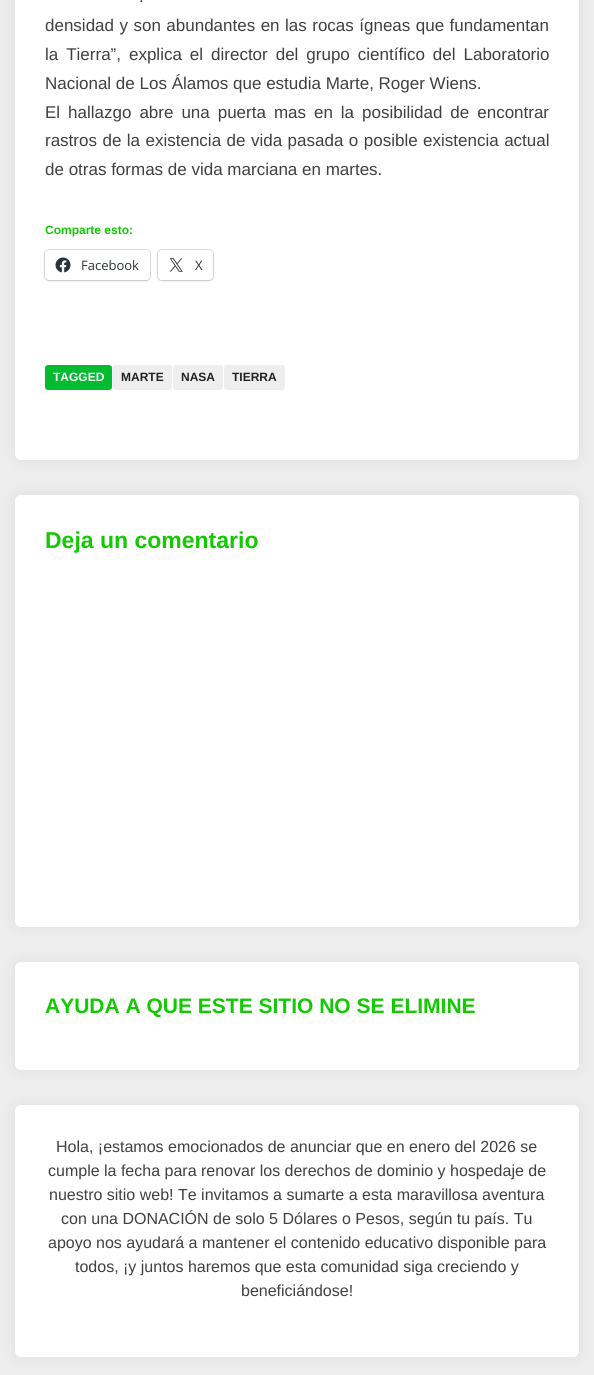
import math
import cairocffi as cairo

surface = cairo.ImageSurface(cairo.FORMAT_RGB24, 594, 1375)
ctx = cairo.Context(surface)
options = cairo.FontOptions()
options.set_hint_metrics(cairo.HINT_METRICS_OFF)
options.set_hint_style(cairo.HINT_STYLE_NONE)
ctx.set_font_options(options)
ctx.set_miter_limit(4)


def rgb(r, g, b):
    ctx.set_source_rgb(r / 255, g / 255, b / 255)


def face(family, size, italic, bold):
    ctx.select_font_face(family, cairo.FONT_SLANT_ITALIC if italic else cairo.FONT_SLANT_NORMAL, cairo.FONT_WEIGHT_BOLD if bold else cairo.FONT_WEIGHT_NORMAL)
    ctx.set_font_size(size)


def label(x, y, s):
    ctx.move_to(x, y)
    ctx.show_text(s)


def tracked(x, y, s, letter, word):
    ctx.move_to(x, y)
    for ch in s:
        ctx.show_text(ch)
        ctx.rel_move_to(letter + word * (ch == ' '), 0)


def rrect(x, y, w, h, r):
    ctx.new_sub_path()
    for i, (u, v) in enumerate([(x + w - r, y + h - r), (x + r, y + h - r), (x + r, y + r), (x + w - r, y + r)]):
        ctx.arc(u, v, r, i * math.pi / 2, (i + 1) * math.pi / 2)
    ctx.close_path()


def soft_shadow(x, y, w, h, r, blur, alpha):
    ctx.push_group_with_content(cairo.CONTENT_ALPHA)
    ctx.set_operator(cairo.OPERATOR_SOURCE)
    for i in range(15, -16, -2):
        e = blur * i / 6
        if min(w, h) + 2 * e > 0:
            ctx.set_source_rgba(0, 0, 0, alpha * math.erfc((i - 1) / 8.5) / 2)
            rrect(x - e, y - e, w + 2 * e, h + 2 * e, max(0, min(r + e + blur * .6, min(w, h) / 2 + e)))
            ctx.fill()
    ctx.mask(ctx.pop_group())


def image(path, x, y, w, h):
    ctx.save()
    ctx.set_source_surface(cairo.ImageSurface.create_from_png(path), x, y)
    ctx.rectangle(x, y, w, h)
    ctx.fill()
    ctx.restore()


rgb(237, 237, 237)
ctx.paint()
rgb(0, 0, 0)
soft_shadow(15, -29, 564, 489, 6, 7.5, 0.06)
rgb(255, 255, 255)
rrect(15, -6, 564, 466, 6)
ctx.fill()
face('Liberation Sans', 17, 0, 0)
rgb(64, 64, 64)
tracked(139, 2, '.', 0, 5)
tracked(45, 31, 'densidad y son abundantes en las rocas ígneas que fundamentan', 0, 0.75)
tracked(45, 60, 'la Tierra”, explica el director del grupo científico del Laboratorio', 0, 3.25)
label(45, 89, 'Nacional de Los Álamos que estudia Marte, Roger Wiens.')
tracked(45, 118, 'El hallazgo abre una puerta mas en la posibilidad de encontrar', 0, 3.25)
tracked(45, 146, 'rastros de la existencia de vida pasada o posible existencia actual', 0, 0.75)
label(45, 175, 'de otras formas de vida marciana en martes.')
face('Liberation Sans', 12, 0, 1)
rgb(18, 201, 2)
label(45, 234, 'Comparte esto:')
rrect(44.5, 249.5, 106, 31, 4.5)
rgb(224, 224, 224)
ctx.set_line_width(1)
ctx.stroke()
rgb(0, 0, 0)
soft_shadow(45, 251, 105, 30, 4, 1, 0.12)
rgb(255, 255, 255)
rrect(45, 250, 105, 30, 4)
ctx.fill()
image('image0.png', 55, 257, 16, 16)
face('Open Sans', 13, 0, 0)
rgb(44, 51, 56)
label(81, 270, 'Facebook')
rrect(157.5, 249.5, 56, 31, 4.5)
rgb(224, 224, 224)
ctx.stroke()
rgb(0, 0, 0)
soft_shadow(158, 251, 55, 30, 4, 1, 0.12)
rgb(255, 255, 255)
rrect(158, 250, 55, 30, 4)
ctx.fill()
image('image1.png', 169, 258, 14, 14)
rgb(44, 51, 56)
label(195, 270, 'X')
rgb(1, 188, 48)
rrect(45, 365, 67, 25, 3)
ctx.fill()
face('Liberation Sans', 12, 0, 1)
rgb(255, 255, 255)
label(53, 381, 'TAGGED')
rgb(238, 238, 238)
rrect(113, 365, 59, 25, 3)
ctx.fill()
rgb(34, 34, 34)
label(121, 381, 'MARTE')
rgb(238, 238, 238)
rrect(173, 365, 50, 25, 3)
ctx.fill()
rgb(34, 34, 34)
label(181, 381, 'NASA')
rgb(238, 238, 238)
rrect(224, 365, 61, 25, 3)
ctx.fill()
rgb(34, 34, 34)
label(232, 381, 'TIERRA')
rgb(0, 0, 0)
soft_shadow(15, 495, 564, 432, 6, 7.5, 0.06)
rgb(255, 255, 255)
rrect(15, 495, 564, 432, 6)
ctx.fill()
face('Liberation Sans', 23, 0, 1)
rgb(18, 201, 2)
label(45, 548, 'Deja un comentario')
rgb(0, 0, 0)
soft_shadow(15, 962, 564, 108, 6, 7.5, 0.06)
rgb(255, 255, 255)
rrect(15, 962, 564, 108, 6)
ctx.fill()
face('Liberation Sans', 21, 0, 1)
rgb(18, 201, 2)
label(45, 1013, 'AYUDA A QUE ESTE SITIO NO SE ELIMINE')
rgb(0, 0, 0)
soft_shadow(15, 1105, 564, 252, 6, 7.5, 0.06)
rgb(255, 255, 255)
rrect(15, 1105, 564, 252, 6)
ctx.fill()
face('Liberation Sans', 16, 0, 0)
rgb(64, 64, 64)
label(56, 1152, 'Hola, ¡estamos emocionados de anunciar que en enero del 2026 se')
label(48, 1176, 'cumple la fecha para renovar los derechos de dominio y hospedaje de')
label(49, 1200, 'nuestro sitio web! Te invitamos a sumarte a esta maravillosa aventura')
label(61, 1224, 'con una DONACIÓN de solo 5 Dólares o Pesos, según tu país. Tu')
label(48, 1248, 'apoyo nos ayudará a mantener el contenido educativo disponible para')
label(75, 1272, 'todos, ¡y juntos haremos que esta comunidad siga creciendo y')
label(241, 1296, 'beneficiándose!')
surface.write_to_png('render.png')
